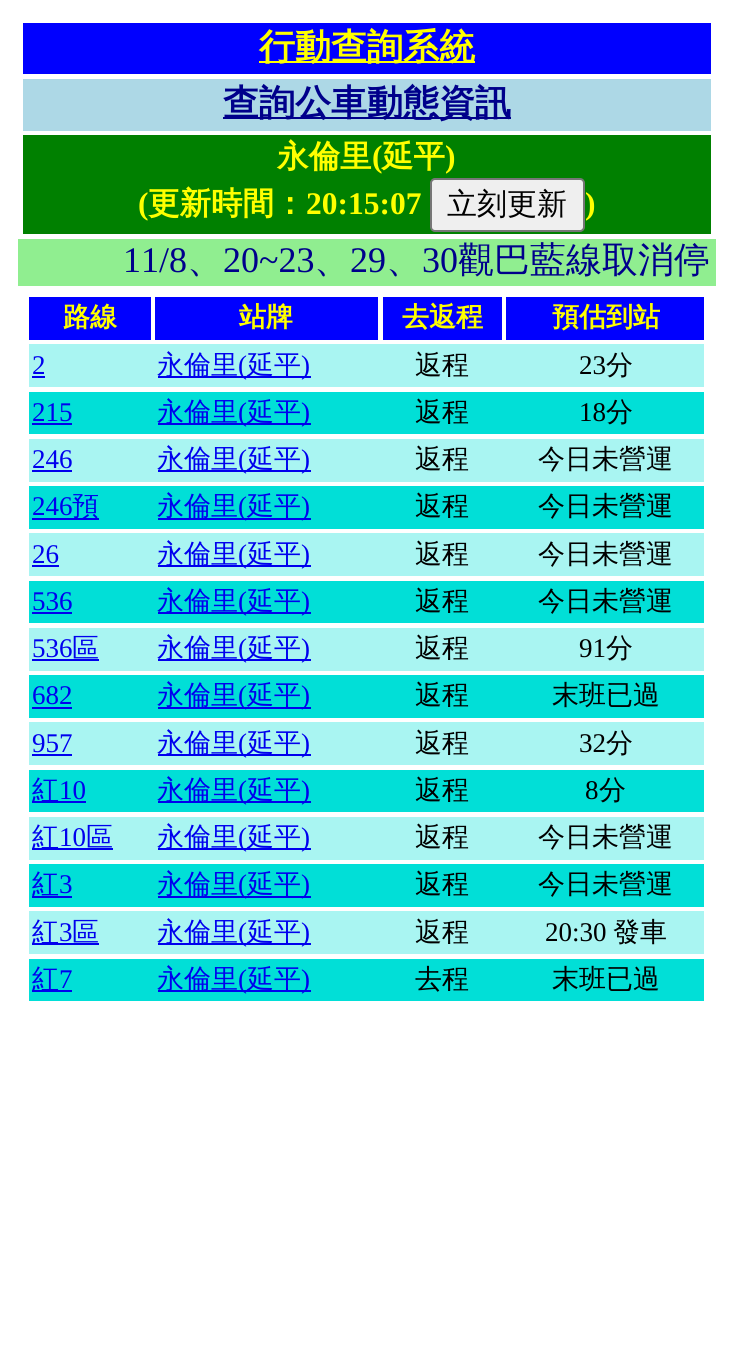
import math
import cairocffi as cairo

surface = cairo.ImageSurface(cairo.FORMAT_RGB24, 733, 1348)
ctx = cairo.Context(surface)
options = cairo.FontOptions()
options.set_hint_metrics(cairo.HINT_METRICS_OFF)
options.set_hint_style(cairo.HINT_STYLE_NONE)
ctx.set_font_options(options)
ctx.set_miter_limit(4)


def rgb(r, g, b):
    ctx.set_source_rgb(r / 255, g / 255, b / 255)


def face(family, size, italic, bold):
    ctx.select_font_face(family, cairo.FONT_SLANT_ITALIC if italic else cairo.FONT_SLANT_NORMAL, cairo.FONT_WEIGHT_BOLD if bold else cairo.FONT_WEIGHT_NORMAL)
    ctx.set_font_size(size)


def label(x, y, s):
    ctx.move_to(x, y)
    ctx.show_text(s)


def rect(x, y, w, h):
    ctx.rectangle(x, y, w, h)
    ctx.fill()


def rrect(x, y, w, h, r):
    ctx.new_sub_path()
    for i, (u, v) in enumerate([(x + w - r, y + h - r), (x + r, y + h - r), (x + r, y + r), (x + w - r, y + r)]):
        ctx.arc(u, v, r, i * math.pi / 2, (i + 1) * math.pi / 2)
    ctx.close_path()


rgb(255, 255, 255)
ctx.paint()
rgb(0, 0, 255)
rect(23, 23, 688, 51)
rgb(255, 255, 0)
rect(259, 61, 216, 2)
face('WenQuanYi Zen Hei', 36, 0, 1)
label(259, 59, '行動查詢系統')
rgb(173, 216, 230)
rect(23, 79, 688, 52)
rgb(0, 0, 139)
rect(223, 117, 288, 2)
label(223, 115, '查詢公車動態資訊')
rgb(0, 128, 0)
rect(23, 135, 688, 99)
face('WenQuanYi Zen Hei', 31.5, 0, 1)
rgb(255, 255, 0)
label(277, 167, '永倫里')
face('Liberation Serif', 31.5, 0, 1)
label(372, 167, '(')
face('WenQuanYi Zen Hei', 31.5, 0, 1)
label(382, 167, '延平')
face('Liberation Serif', 31.5, 0, 1)
label(445, 167, ')')
label(138, 214, '(')
face('WenQuanYi Zen Hei', 31.5, 0, 1)
label(148, 214, '更新時間：')
face('Liberation Serif', 31.5, 0, 1)
label(306, 214, '20:15:07')
rgb(239, 239, 239)
rrect(431, 179, 153, 52, 4)
ctx.fill_preserve()
rgb(118, 118, 118)
ctx.stroke()
face('WenQuanYi Zen Hei Medium', 30, 0, 0)
rgb(0, 0, 0)
label(447, 214, '立刻更新')
face('Liberation Serif', 31.5, 0, 1)
rgb(255, 255, 0)
label(585, 214, ')')
rgb(144, 238, 144)
rect(18, 239, 698, 47)
face('Liberation Serif', 36, 0, 0)
rgb(0, 0, 139)
label(123, 272, '11/8')
face('WenQuanYi Zen Hei Medium', 36, 0, 0)
label(187, 272, '、')
face('Liberation Serif', 36, 0, 0)
label(223, 272, '20~23')
face('WenQuanYi Zen Hei Medium', 36, 0, 0)
label(314, 272, '、')
face('Liberation Serif', 36, 0, 0)
label(350, 272, '29')
face('WenQuanYi Zen Hei Medium', 36, 0, 0)
label(386, 272, '、')
face('Liberation Serif', 36, 0, 0)
label(422, 272, '30')
face('WenQuanYi Zen Hei Medium', 36, 0, 0)
label(458, 272, '觀巴藍線取消停')
rgb(0, 0, 255)
rect(29, 297, 122, 43)
face('WenQuanYi Zen Hei', 27, 0, 1)
rgb(255, 255, 0)
label(63, 326, '路線')
rgb(0, 0, 255)
rect(155, 297, 223, 43)
rgb(255, 255, 0)
label(239, 326, '站牌')
rgb(0, 0, 255)
rect(383, 297, 119, 43)
rgb(255, 255, 0)
label(402, 326, '去返程')
rgb(0, 0, 255)
rect(506, 297, 198, 43)
rgb(255, 255, 0)
label(552, 326, '預估到站')
rgb(169, 245, 242)
rect(29, 344, 675, 43)
face('Liberation Serif', 27, 0, 0)
rgb(0, 0, 238)
label(32, 374, '2')
rect(32, 376, 13, 2)
rect(158, 376, 153, 2)
face('WenQuanYi Zen Hei Medium', 27, 0, 0)
label(157, 374, '永倫里')
face('Liberation Serif', 27, 0, 0)
label(238, 374, '(')
face('WenQuanYi Zen Hei Medium', 27, 0, 0)
label(247, 374, '延平')
face('Liberation Serif', 27, 0, 0)
label(301, 374, ')')
face('WenQuanYi Zen Hei Medium', 27, 0, 0)
rgb(0, 0, 0)
label(415, 374, '返程')
face('Liberation Serif', 27, 0, 0)
label(579, 374, '23')
face('WenQuanYi Zen Hei Medium', 27, 0, 0)
label(606, 374, '分')
rgb(1, 223, 215)
rect(29, 392, 675, 42)
face('Liberation Serif', 27, 0, 0)
rgb(0, 0, 238)
label(32, 421, '215')
rect(32, 423, 40, 2)
rect(158, 423, 153, 2)
face('WenQuanYi Zen Hei Medium', 27, 0, 0)
label(157, 421, '永倫里')
face('Liberation Serif', 27, 0, 0)
label(238, 421, '(')
face('WenQuanYi Zen Hei Medium', 27, 0, 0)
label(247, 421, '延平')
face('Liberation Serif', 27, 0, 0)
label(301, 421, ')')
face('WenQuanYi Zen Hei Medium', 27, 0, 0)
rgb(0, 0, 0)
label(415, 421, '返程')
face('Liberation Serif', 27, 0, 0)
label(579, 421, '18')
face('WenQuanYi Zen Hei Medium', 27, 0, 0)
label(606, 421, '分')
rgb(169, 245, 242)
rect(29, 439, 675, 43)
face('Liberation Serif', 27, 0, 0)
rgb(0, 0, 238)
label(32, 468, '246')
rect(32, 470, 40, 2)
rect(158, 470, 153, 2)
face('WenQuanYi Zen Hei Medium', 27, 0, 0)
label(157, 468, '永倫里')
face('Liberation Serif', 27, 0, 0)
label(238, 468, '(')
face('WenQuanYi Zen Hei Medium', 27, 0, 0)
label(247, 468, '延平')
face('Liberation Serif', 27, 0, 0)
label(301, 468, ')')
face('WenQuanYi Zen Hei Medium', 27, 0, 0)
rgb(0, 0, 0)
label(415, 468, '返程')
label(538, 468, '今日未營運')
rgb(1, 223, 215)
rect(29, 486, 675, 43)
face('Liberation Serif', 27, 0, 0)
rgb(0, 0, 238)
label(32, 515, '246')
rect(32, 518, 67, 2)
face('WenQuanYi Zen Hei Medium', 27, 0, 0)
label(72, 515, '預')
rect(158, 518, 153, 2)
label(157, 515, '永倫里')
face('Liberation Serif', 27, 0, 0)
label(238, 515, '(')
face('WenQuanYi Zen Hei Medium', 27, 0, 0)
label(247, 515, '延平')
face('Liberation Serif', 27, 0, 0)
label(301, 515, ')')
face('WenQuanYi Zen Hei Medium', 27, 0, 0)
rgb(0, 0, 0)
label(415, 515, '返程')
label(538, 515, '今日未營運')
rgb(169, 245, 242)
rect(29, 533, 675, 43)
face('Liberation Serif', 27, 0, 0)
rgb(0, 0, 238)
label(32, 563, '26')
rect(32, 565, 27, 2)
rect(158, 565, 153, 2)
face('WenQuanYi Zen Hei Medium', 27, 0, 0)
label(157, 563, '永倫里')
face('Liberation Serif', 27, 0, 0)
label(238, 563, '(')
face('WenQuanYi Zen Hei Medium', 27, 0, 0)
label(247, 563, '延平')
face('Liberation Serif', 27, 0, 0)
label(301, 563, ')')
face('WenQuanYi Zen Hei Medium', 27, 0, 0)
rgb(0, 0, 0)
label(415, 563, '返程')
label(538, 563, '今日未營運')
rgb(1, 223, 215)
rect(29, 581, 675, 42)
face('Liberation Serif', 27, 0, 0)
rgb(0, 0, 238)
label(32, 610, '536')
rect(32, 612, 40, 2)
rect(158, 612, 153, 2)
face('WenQuanYi Zen Hei Medium', 27, 0, 0)
label(157, 610, '永倫里')
face('Liberation Serif', 27, 0, 0)
label(238, 610, '(')
face('WenQuanYi Zen Hei Medium', 27, 0, 0)
label(247, 610, '延平')
face('Liberation Serif', 27, 0, 0)
label(301, 610, ')')
face('WenQuanYi Zen Hei Medium', 27, 0, 0)
rgb(0, 0, 0)
label(415, 610, '返程')
label(538, 610, '今日未營運')
rgb(169, 245, 242)
rect(29, 628, 675, 43)
face('Liberation Serif', 27, 0, 0)
rgb(0, 0, 238)
label(32, 657, '536')
rect(32, 659, 67, 2)
face('WenQuanYi Zen Hei Medium', 27, 0, 0)
label(72, 657, '區')
rect(158, 659, 153, 2)
label(157, 657, '永倫里')
face('Liberation Serif', 27, 0, 0)
label(238, 657, '(')
face('WenQuanYi Zen Hei Medium', 27, 0, 0)
label(247, 657, '延平')
face('Liberation Serif', 27, 0, 0)
label(301, 657, ')')
face('WenQuanYi Zen Hei Medium', 27, 0, 0)
rgb(0, 0, 0)
label(415, 657, '返程')
face('Liberation Serif', 27, 0, 0)
label(579, 657, '91')
face('WenQuanYi Zen Hei Medium', 27, 0, 0)
label(606, 657, '分')
rgb(1, 223, 215)
rect(29, 675, 675, 43)
face('Liberation Serif', 27, 0, 0)
rgb(0, 0, 238)
label(32, 704, '682')
rect(32, 707, 40, 2)
rect(158, 707, 153, 2)
face('WenQuanYi Zen Hei Medium', 27, 0, 0)
label(157, 704, '永倫里')
face('Liberation Serif', 27, 0, 0)
label(238, 704, '(')
face('WenQuanYi Zen Hei Medium', 27, 0, 0)
label(247, 704, '延平')
face('Liberation Serif', 27, 0, 0)
label(301, 704, ')')
face('WenQuanYi Zen Hei Medium', 27, 0, 0)
rgb(0, 0, 0)
label(415, 704, '返程')
label(552, 704, '末班已過')
rgb(169, 245, 242)
rect(29, 722, 675, 43)
face('Liberation Serif', 27, 0, 0)
rgb(0, 0, 238)
label(32, 752, '957')
rect(32, 754, 40, 2)
rect(158, 754, 153, 2)
face('WenQuanYi Zen Hei Medium', 27, 0, 0)
label(157, 752, '永倫里')
face('Liberation Serif', 27, 0, 0)
label(238, 752, '(')
face('WenQuanYi Zen Hei Medium', 27, 0, 0)
label(247, 752, '延平')
face('Liberation Serif', 27, 0, 0)
label(301, 752, ')')
face('WenQuanYi Zen Hei Medium', 27, 0, 0)
rgb(0, 0, 0)
label(415, 752, '返程')
face('Liberation Serif', 27, 0, 0)
label(579, 752, '32')
face('WenQuanYi Zen Hei Medium', 27, 0, 0)
label(606, 752, '分')
rgb(1, 223, 215)
rect(29, 770, 675, 42)
rgb(0, 0, 238)
rect(32, 801, 54, 2)
label(32, 799, '紅')
face('Liberation Serif', 27, 0, 0)
label(59, 799, '10')
rect(158, 801, 153, 2)
face('WenQuanYi Zen Hei Medium', 27, 0, 0)
label(157, 799, '永倫里')
face('Liberation Serif', 27, 0, 0)
label(238, 799, '(')
face('WenQuanYi Zen Hei Medium', 27, 0, 0)
label(247, 799, '延平')
face('Liberation Serif', 27, 0, 0)
label(301, 799, ')')
face('WenQuanYi Zen Hei Medium', 27, 0, 0)
rgb(0, 0, 0)
label(415, 799, '返程')
face('Liberation Serif', 27, 0, 0)
label(585, 799, '8')
face('WenQuanYi Zen Hei Medium', 27, 0, 0)
label(599, 799, '分')
rgb(169, 245, 242)
rect(29, 817, 675, 43)
rgb(0, 0, 238)
rect(32, 848, 81, 2)
label(32, 846, '紅')
face('Liberation Serif', 27, 0, 0)
label(59, 846, '10')
face('WenQuanYi Zen Hei Medium', 27, 0, 0)
label(86, 846, '區')
rect(158, 848, 153, 2)
label(157, 846, '永倫里')
face('Liberation Serif', 27, 0, 0)
label(238, 846, '(')
face('WenQuanYi Zen Hei Medium', 27, 0, 0)
label(247, 846, '延平')
face('Liberation Serif', 27, 0, 0)
label(301, 846, ')')
face('WenQuanYi Zen Hei Medium', 27, 0, 0)
rgb(0, 0, 0)
label(415, 846, '返程')
label(538, 846, '今日未營運')
rgb(1, 223, 215)
rect(29, 864, 675, 43)
rgb(0, 0, 238)
rect(32, 896, 40, 2)
label(32, 893, '紅')
face('Liberation Serif', 27, 0, 0)
label(59, 893, '3')
rect(158, 896, 153, 2)
face('WenQuanYi Zen Hei Medium', 27, 0, 0)
label(157, 893, '永倫里')
face('Liberation Serif', 27, 0, 0)
label(238, 893, '(')
face('WenQuanYi Zen Hei Medium', 27, 0, 0)
label(247, 893, '延平')
face('Liberation Serif', 27, 0, 0)
label(301, 893, ')')
face('WenQuanYi Zen Hei Medium', 27, 0, 0)
rgb(0, 0, 0)
label(415, 893, '返程')
label(538, 893, '今日未營運')
rgb(169, 245, 242)
rect(29, 911, 675, 43)
rgb(0, 0, 238)
rect(32, 943, 67, 2)
label(32, 941, '紅')
face('Liberation Serif', 27, 0, 0)
label(59, 941, '3')
face('WenQuanYi Zen Hei Medium', 27, 0, 0)
label(72, 941, '區')
rect(158, 943, 153, 2)
label(157, 941, '永倫里')
face('Liberation Serif', 27, 0, 0)
label(238, 941, '(')
face('WenQuanYi Zen Hei Medium', 27, 0, 0)
label(247, 941, '延平')
face('Liberation Serif', 27, 0, 0)
label(301, 941, ')')
face('WenQuanYi Zen Hei Medium', 27, 0, 0)
rgb(0, 0, 0)
label(415, 941, '返程')
face('Liberation Serif', 27, 0, 0)
label(545, 941, '20:30')
face('WenQuanYi Zen Hei Medium', 27, 0, 0)
label(613, 941, '發車')
rgb(1, 223, 215)
rect(29, 959, 675, 42)
rgb(0, 0, 238)
rect(32, 990, 40, 2)
label(32, 988, '紅')
face('Liberation Serif', 27, 0, 0)
label(59, 988, '7')
rect(158, 990, 153, 2)
face('WenQuanYi Zen Hei Medium', 27, 0, 0)
label(157, 988, '永倫里')
face('Liberation Serif', 27, 0, 0)
label(238, 988, '(')
face('WenQuanYi Zen Hei Medium', 27, 0, 0)
label(247, 988, '延平')
face('Liberation Serif', 27, 0, 0)
label(301, 988, ')')
face('WenQuanYi Zen Hei Medium', 27, 0, 0)
rgb(0, 0, 0)
label(415, 988, '去程')
label(552, 988, '末班已過')
surface.write_to_png('render.png')
